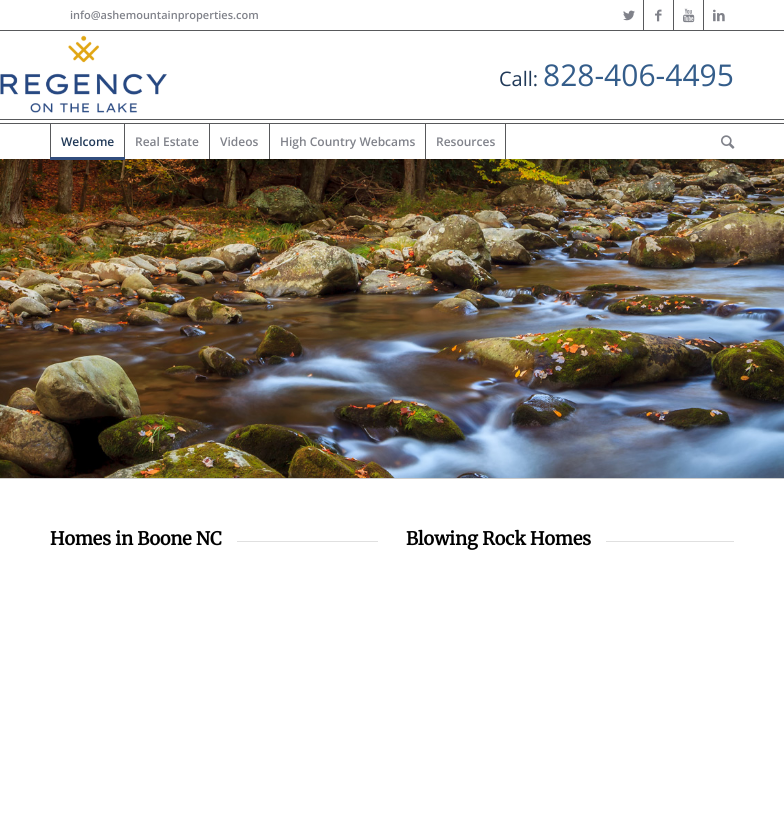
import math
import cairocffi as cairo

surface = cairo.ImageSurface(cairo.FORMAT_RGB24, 784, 814)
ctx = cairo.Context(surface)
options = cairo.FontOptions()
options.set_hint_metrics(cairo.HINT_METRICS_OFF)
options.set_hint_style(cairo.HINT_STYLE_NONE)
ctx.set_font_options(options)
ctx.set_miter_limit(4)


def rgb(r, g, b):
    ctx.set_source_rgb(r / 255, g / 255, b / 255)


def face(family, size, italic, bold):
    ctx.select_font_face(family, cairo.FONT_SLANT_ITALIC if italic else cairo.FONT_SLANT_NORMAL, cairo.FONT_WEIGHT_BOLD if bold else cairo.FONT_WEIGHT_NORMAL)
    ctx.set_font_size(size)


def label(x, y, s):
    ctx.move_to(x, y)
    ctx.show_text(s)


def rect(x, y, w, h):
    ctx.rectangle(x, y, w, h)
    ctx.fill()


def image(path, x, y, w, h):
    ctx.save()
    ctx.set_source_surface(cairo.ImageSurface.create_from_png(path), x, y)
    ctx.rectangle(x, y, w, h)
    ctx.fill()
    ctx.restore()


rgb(255, 255, 255)
ctx.paint()
rgb(88, 89, 91)
rect(0, 30, 784, 1)
face('Open Sans SemiBold', 11, 0, 0)
rgb(128, 130, 138)
label(70, 19, 'info@ashemountainproperties.com')
rgb(88, 89, 91)
rect(643, 0, 1, 30)
image('image0.png', 623, 10, 12, 11)
rect(673, 0, 1, 30)
image('image1.png', 655, 9, 7, 13)
rect(703, 0, 1, 30)
image('image2.png', 683, 8, 12, 15)
image('image3.png', 713, 9, 12, 13)
rect(0, 119, 784, 1)
image('image4.png', 0, 35, 167, 78)
face('Open Sans', 20, 0, 0)
rgb(32, 57, 88)
label(499, 86, 'Call:')
face('Open Sans', 30, 0, 0)
rgb(52, 93, 138)
label(543, 86, '828-406-4495')
rgb(88, 89, 91)
rect(0, 123, 784, 1)
rect(124, 124, 1, 35)
rect(50, 124, 1, 35)
face('Open Sans SemiBold', 12, 0, 0)
rgb(32, 57, 88)
label(61, 146, 'Welcome')
image('image6.png', 0, 159, 784, 319)
rgb(49, 77, 125)
rect(50, 157, 75, 3)
rgb(88, 89, 91)
rect(209, 124, 1, 35)
rgb(128, 130, 138)
label(135, 146, 'Real Estate')
rgb(88, 89, 91)
rect(269, 124, 1, 35)
rgb(128, 130, 138)
label(220, 146, 'Videos')
rgb(88, 89, 91)
rect(425, 124, 1, 35)
rgb(128, 130, 138)
label(280, 146, 'High Country Webcams')
rgb(88, 89, 91)
rect(505, 124, 1, 35)
rgb(128, 130, 138)
label(436, 146, 'Resources')
image('image5.png', 721, 135, 14, 14)
rgb(204, 204, 204)
rect(0, 478, 784, 1)
face('Merriweather', 18, 0, 1)
rgb(0, 0, 0)
label(50, 545, 'Homes in Boone NC')
rgb(224, 224, 224)
rect(237, 541, 141, 1)
rgb(0, 0, 0)
label(406, 545, 'Blowing Rock Homes')
rgb(224, 224, 224)
rect(606, 541, 128, 1)
surface.write_to_png('render.png')
